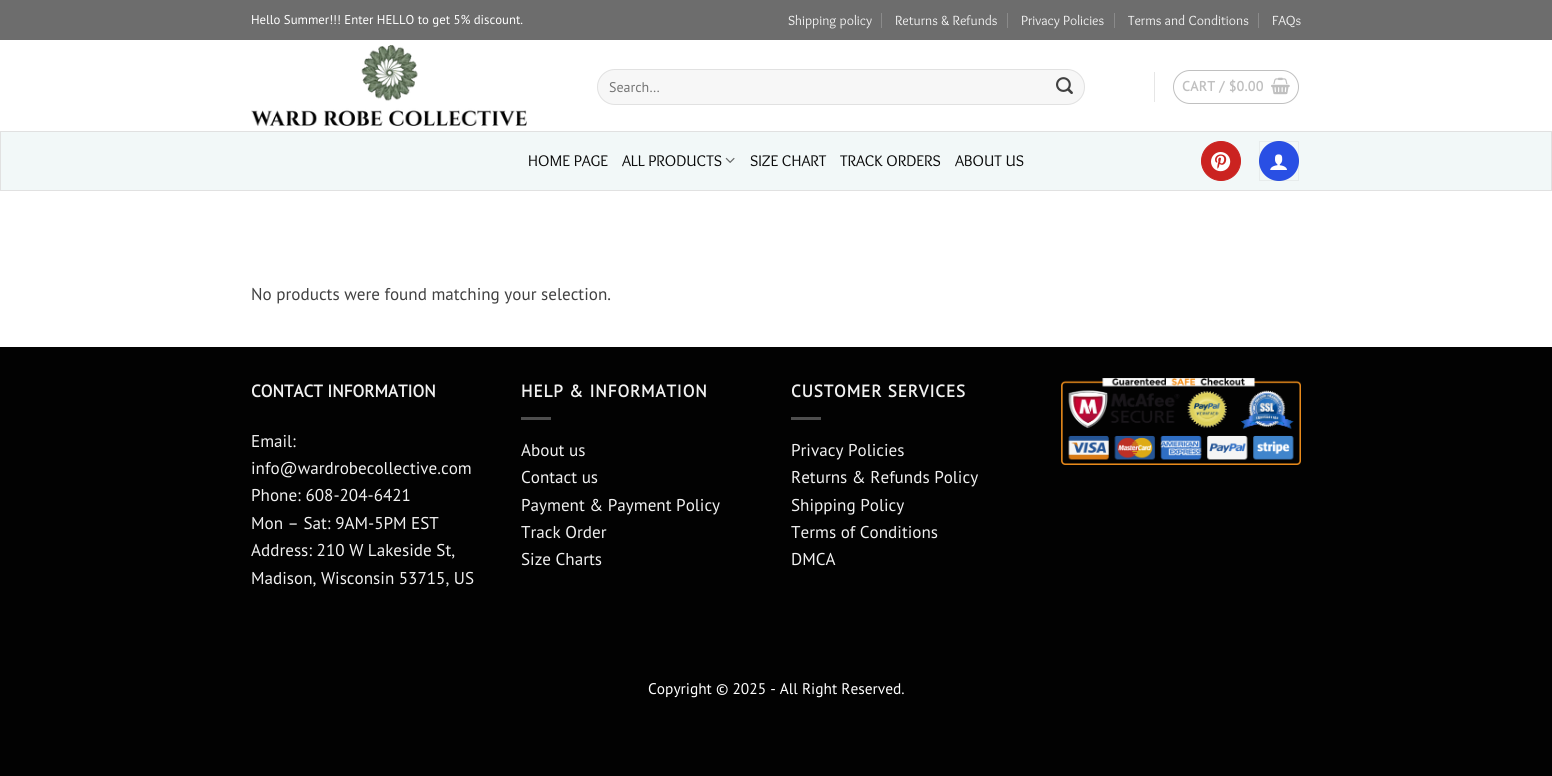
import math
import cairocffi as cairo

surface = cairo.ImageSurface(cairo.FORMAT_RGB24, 1552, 776)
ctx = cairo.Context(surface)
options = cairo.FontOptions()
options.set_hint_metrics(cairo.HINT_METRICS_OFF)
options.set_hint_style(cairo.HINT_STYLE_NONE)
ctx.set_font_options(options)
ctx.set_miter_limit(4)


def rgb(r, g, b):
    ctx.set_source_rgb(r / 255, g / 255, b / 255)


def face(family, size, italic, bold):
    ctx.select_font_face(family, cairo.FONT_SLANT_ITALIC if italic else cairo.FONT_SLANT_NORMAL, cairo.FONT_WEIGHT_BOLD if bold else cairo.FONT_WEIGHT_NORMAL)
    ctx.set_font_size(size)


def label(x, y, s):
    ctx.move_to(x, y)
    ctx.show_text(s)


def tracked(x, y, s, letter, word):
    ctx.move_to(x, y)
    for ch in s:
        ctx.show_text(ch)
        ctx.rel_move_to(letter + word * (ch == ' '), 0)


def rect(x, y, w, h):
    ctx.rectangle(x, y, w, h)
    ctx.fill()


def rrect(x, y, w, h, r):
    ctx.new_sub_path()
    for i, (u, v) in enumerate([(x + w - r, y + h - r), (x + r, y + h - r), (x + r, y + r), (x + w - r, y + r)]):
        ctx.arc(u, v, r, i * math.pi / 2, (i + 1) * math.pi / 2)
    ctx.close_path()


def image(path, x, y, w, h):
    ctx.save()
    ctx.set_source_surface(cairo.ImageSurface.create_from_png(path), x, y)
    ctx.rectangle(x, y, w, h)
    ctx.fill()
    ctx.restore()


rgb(2, 2, 2)
ctx.paint()
rgb(255, 255, 255)
rect(0, 40, 1552, 307)
rgb(109, 109, 109)
rect(0, 0, 1552, 40)
face('PT Sans', 12.8, 0, 0)
rgb(255, 255, 255)
label(251, 24, 'Hello Summer!!! Enter HELLO to get 5% discount.')
face('Overlock', 13.75, 0, 0)
rgb(241, 241, 241)
label(788, 25, 'Shipping policy')
rgb(138, 138, 138)
rect(881, 13, 1, 15)
rgb(241, 241, 241)
label(895, 25, 'Returns & Refunds')
rgb(138, 138, 138)
rect(1007, 13, 1, 15)
rgb(241, 241, 241)
label(1021, 25, 'Privacy Policies')
rgb(138, 138, 138)
rect(1114, 13, 1, 15)
rgb(241, 241, 241)
label(1128, 25, 'Terms and Conditions')
rgb(138, 138, 138)
rect(1258, 13, 1, 15)
rgb(241, 241, 241)
label(1272, 25, 'FAQs')
image('image0.png', 251, 45, 276, 81)
rgb(247, 247, 247)
rrect(597, 69, 488, 36, 18)
ctx.fill()
rrect(597.5, 69.5, 487, 35, 17.5)
ctx.set_source_rgba(0, 0, 0, 0.09)
ctx.set_line_width(1)
ctx.stroke()
face('PT Sans', 14, 0, 0)
rgb(117, 117, 117)
label(609, 92, 'Search…')
image('image1.png', 1056, 77, 17, 17)
rgb(230, 230, 230)
rect(1154, 72, 1, 30)
rrect(1173.5, 70.5, 125, 33, 16.5)
rgb(192, 192, 192)
ctx.stroke()
face('PT Sans', 13.75, 0, 1)
tracked(1182, 91, 'CART / $0.00', 0.4, 0)
image('image2.png', 1271, 77, 19, 18)
rgb(242, 248, 248)
ctx.rectangle(0.5, 131.5, 1551, 59)
ctx.fill_preserve()
rgb(225, 225, 225)
ctx.stroke()
face('Overlock', 16, 0, 0)
rgb(10, 10, 10)
label(528, 166, 'HOME PAGE')
label(622, 166, 'ALL PRODUCTS')
image('image3.png', 725, 157, 10, 6)
label(750, 166, 'SIZE CHART')
label(840, 166, 'TRACK ORDERS')
label(955, 166, 'ABOUT US')
rgb(203, 35, 32)
ctx.new_path()
ctx.arc(1221, 161, 19.5, 0, 2 * math.pi)
ctx.fill_preserve()
ctx.stroke()
image('image4.png', 1211, 152, 20, 20)
rgb(41, 79, 228)
ctx.arc(1279, 161, 20, 0, 2 * math.pi)
ctx.fill()
ctx.rectangle(1259.5, 141.5, 39, 39)
ctx.set_source_rgba(0, 0, 0, 0.05)
ctx.stroke()
image('image5.png', 1270, 154, 17, 16)
face('PT Sans', 17.1, 0, 0)
rgb(65, 65, 65)
label(251, 300, 'No products were found matching your selection.')
face('PT Sans', 17.1, 0, 1)
rgb(241, 241, 241)
label(251, 397, 'CONTACT INFORMATION')
face('PT Sans', 17.1, 0, 0)
label(251, 447, 'Email:')
label(251, 474, 'info@wardrobecollective.com')
label(251, 501, 'Phone: 608-204-6421')
label(251, 529, 'Mon – Sat: 9AM-5PM EST')
label(251, 556, 'Address: 210 W Lakeside St,')
label(251, 584, 'Madison, Wisconsin 53715, US')
face('PT Sans', 17.1, 0, 1)
tracked(521, 397, 'HELP & INFORMATION', 0.9, 0)
rgb(78, 78, 78)
rect(521, 417, 30, 3)
face('PT Sans', 17.1, 0, 0)
rgb(241, 241, 241)
label(521, 456, 'About us')
label(521, 483, 'Contact us')
label(521, 511, 'Payment & Payment Policy')
label(521, 538, 'Track Order')
label(521, 565, 'Size Charts')
face('PT Sans', 17.1, 0, 1)
tracked(791, 397, 'CUSTOMER SERVICES', 0.9, 0)
rgb(78, 78, 78)
rect(791, 417, 30, 3)
face('PT Sans', 17.1, 0, 0)
rgb(241, 241, 241)
label(791, 456, 'Privacy Policies')
label(791, 483, 'Returns & Refunds Policy')
label(791, 511, 'Shipping Policy')
label(791, 538, 'Terms of Conditions')
label(791, 565, 'DMCA')
image('image6.png', 1061, 378, 240, 87)
face('PT Sans', 15.4, 0, 0)
rgb(255, 255, 255)
label(648, 694, 'Copyright © 2025 - All Right Reserved.')
surface.write_to_png('render.png')
